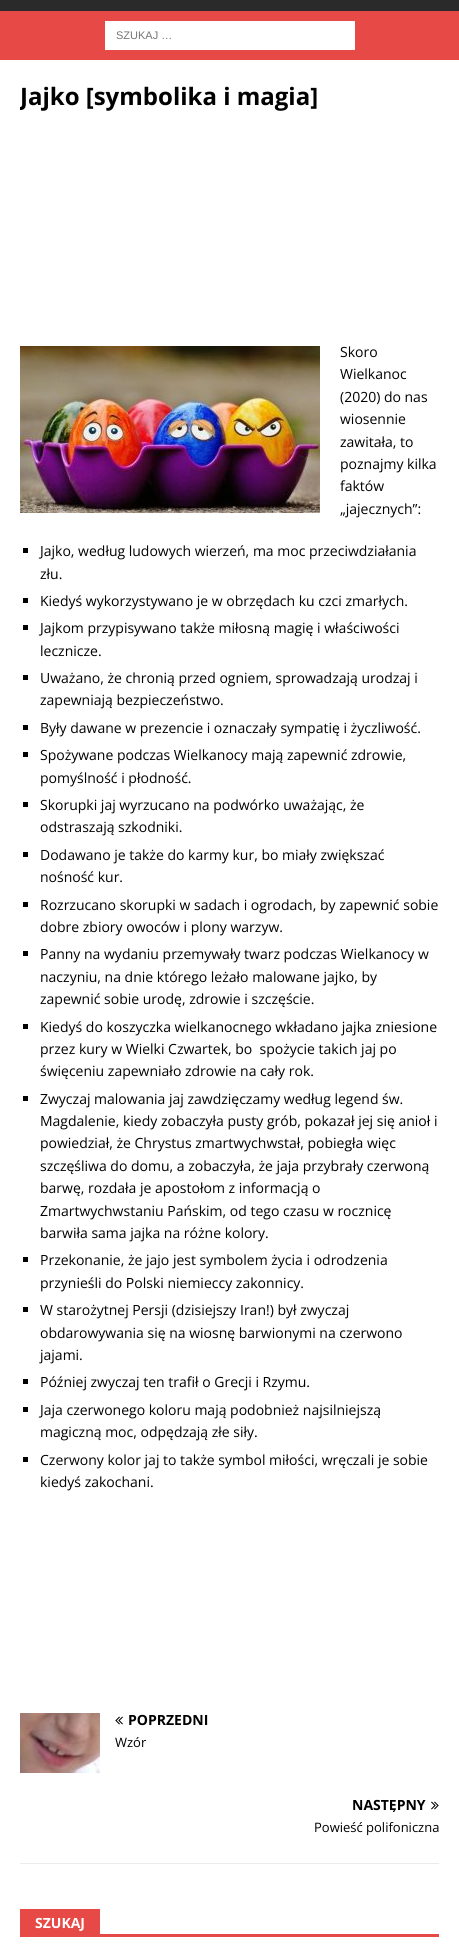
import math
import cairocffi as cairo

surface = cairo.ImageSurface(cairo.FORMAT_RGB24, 459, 1946)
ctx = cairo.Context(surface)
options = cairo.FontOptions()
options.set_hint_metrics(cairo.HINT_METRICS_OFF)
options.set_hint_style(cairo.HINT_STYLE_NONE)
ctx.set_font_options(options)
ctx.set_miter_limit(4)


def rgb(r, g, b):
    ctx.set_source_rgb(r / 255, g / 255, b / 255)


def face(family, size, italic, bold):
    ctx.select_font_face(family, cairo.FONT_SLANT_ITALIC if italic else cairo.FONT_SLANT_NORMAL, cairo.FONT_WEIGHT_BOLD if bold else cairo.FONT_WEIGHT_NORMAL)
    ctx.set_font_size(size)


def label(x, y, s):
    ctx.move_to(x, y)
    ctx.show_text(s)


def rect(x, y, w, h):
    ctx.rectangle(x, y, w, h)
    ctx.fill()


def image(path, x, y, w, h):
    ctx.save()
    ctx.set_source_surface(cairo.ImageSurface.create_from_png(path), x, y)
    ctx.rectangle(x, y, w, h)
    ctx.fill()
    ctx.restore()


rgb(42, 42, 42)
ctx.paint()
rgb(230, 73, 70)
rect(0, 11, 459, 49)
rgb(255, 255, 255)
rect(105, 21, 250, 29)
face('Liberation Sans', 11, 0, 0)
rgb(117, 117, 117)
label(116, 39, 'SZUKAJ …')
rgb(255, 255, 255)
rect(0, 60, 459, 1886)
ctx.save()
ctx.rectangle(20, 80, 419, 1809)
ctx.clip()
face('Open Sans', 24, 0, 1)
rgb(0, 0, 0)
label(20, 105, 'Jajko [symbolika i magia]')
ctx.restore()
image('image0.png', 20, 346, 300, 167)
face('Open Sans', 14, 0, 0)
rgb(0, 0, 0)
label(340, 357, 'Skoro')
label(340, 379, 'Wielkanoc')
label(340, 402, '(2020) do nas')
label(340, 424, 'wiosennie')
label(340, 447, 'zawitała, to')
label(340, 469, 'poznajmy kilka')
label(340, 491, 'faktów')
label(340, 514, '„jajecznych”:')
rect(23, 548, 5, 5)
label(40, 556, 'Jajko, według ludowych wierzeń, ma moc przeciwdziałania')
label(40, 579, 'złu.')
rect(23, 598, 5, 5)
label(40, 606, 'Kiedyś wykorzystywano je w obrzędach ku czci zmarłych.')
rect(23, 625, 5, 5)
label(40, 633, 'Jajkom przypisywano także miłosną magię i właściwości')
label(40, 656, 'lecznicze.')
rect(23, 675, 5, 5)
label(40, 683, 'Uważano, że chronią przed ogniem, sprowadzają urodzaj i')
label(40, 705, 'zapewniają bezpieczeństwo.')
rect(23, 725, 5, 5)
label(40, 733, 'Były dawane w prezencie i oznaczały sympatię i życzliwość.')
rect(23, 752, 5, 5)
label(40, 760, 'Spożywane podczas Wielkanocy mają zapewnić zdrowie,')
label(40, 783, 'pomyślność i płodność.')
rect(23, 802, 5, 5)
label(40, 810, 'Skorupki jaj wyrzucano na podwórko uważając, że')
label(40, 832, 'odstraszają szkodniki.')
rect(23, 852, 5, 5)
label(40, 860, 'Dodawano je także do karmy kur, bo miały zwiększać')
label(40, 882, 'nośność kur.')
rect(23, 902, 5, 5)
label(40, 910, 'Rozrzucano skorupki w sadach i ogrodach, by zapewnić sobie')
label(40, 932, 'dobre zbiory owoców i plony warzyw.')
rect(23, 951, 5, 5)
label(40, 959, 'Panny na wydaniu przemywały twarz podczas Wielkanocy w')
label(40, 982, 'naczyniu, na dnie którego leżało malowane jajko, by')
label(40, 1004, 'zapewnić sobie urodę, zdrowie i szczęście.')
rect(23, 1024, 5, 5)
label(40, 1032, 'Kiedyś do koszyczka wielkanocnego wkładano jajka zniesione')
label(40, 1054, 'przez kury w Wielki Czwartek, bo  spożycie takich jaj po')
label(40, 1076, 'święceniu zapewniało zdrowie na cały rok.')
rect(23, 1096, 5, 5)
label(40, 1104, 'Zwyczaj malowania jaj zawdzięczamy według legend św.')
label(40, 1126, 'Magdalenie, kiedy zobaczyła pusty grób, pokazał jej się anioł i')
label(40, 1148, 'powiedział, że Chrystus zmartwychwstał, pobiegła więc')
label(40, 1171, 'szczęśliwa do domu, a zobaczyła, że jaja przybrały czerwoną')
label(40, 1193, 'barwę, rozdała je apostołom z informacją o')
label(40, 1216, 'Zmartwychwstaniu Pańskim, od tego czasu w rocznicę')
label(40, 1238, 'barwiła sama jajka na różne kolory.')
rect(23, 1257, 5, 5)
label(40, 1265, 'Przekonanie, że jajo jest symbolem życia i odrodzenia')
label(40, 1288, 'przynieśli do Polski niemieccy zakonnicy.')
rect(23, 1307, 5, 5)
label(40, 1315, 'W starożytnej Persji (dzisiejszy Iran!) był zwyczaj')
label(40, 1338, 'obdarowywania się na wiosnę barwionymi na czerwono')
label(40, 1360, 'jajami.')
rect(23, 1379, 5, 5)
label(40, 1387, 'Później zwyczaj ten trafił o Grecji i Rzymu.')
rect(23, 1407, 5, 5)
label(40, 1415, 'Jaja czerwonego koloru mają podobnież najsilniejszą')
label(40, 1437, 'magiczną moc, odpędzają złe siły.')
rect(23, 1457, 5, 5)
label(40, 1465, 'Czerwony kolor jaj to także symbol miłości, wręczali je sobie')
label(40, 1487, 'kiedyś zakochani.')
rgb(235, 235, 235)
rect(20, 1863, 419, 1)
image('image1.png', 20, 1713, 80, 60)
image('image2.png', 115, 1716, 8, 9)
face('Open Sans', 14, 0, 1)
rgb(0, 0, 0)
label(128, 1725, 'POPRZEDNI')
face('Open Sans', 13, 0, 0)
label(115, 1747, 'Wzór')
ctx.save()
ctx.rectangle(20, 1798, 419, 14)
ctx.clip()
face('Open Sans', 14, 0, 1)
label(352, 1810, 'NASTĘPNY')
ctx.restore()
image('image3.png', 431, 1801, 8, 9)
label(314, 1832, 'Powieść polifoniczna')
rgb(230, 73, 70)
rect(20, 1934, 419, 3)
rect(20, 1909, 80, 25)
face('Open Sans', 14, 0, 1)
rgb(255, 255, 255)
label(35, 1928, 'SZUKAJ')
surface.write_to_png('render.png')
